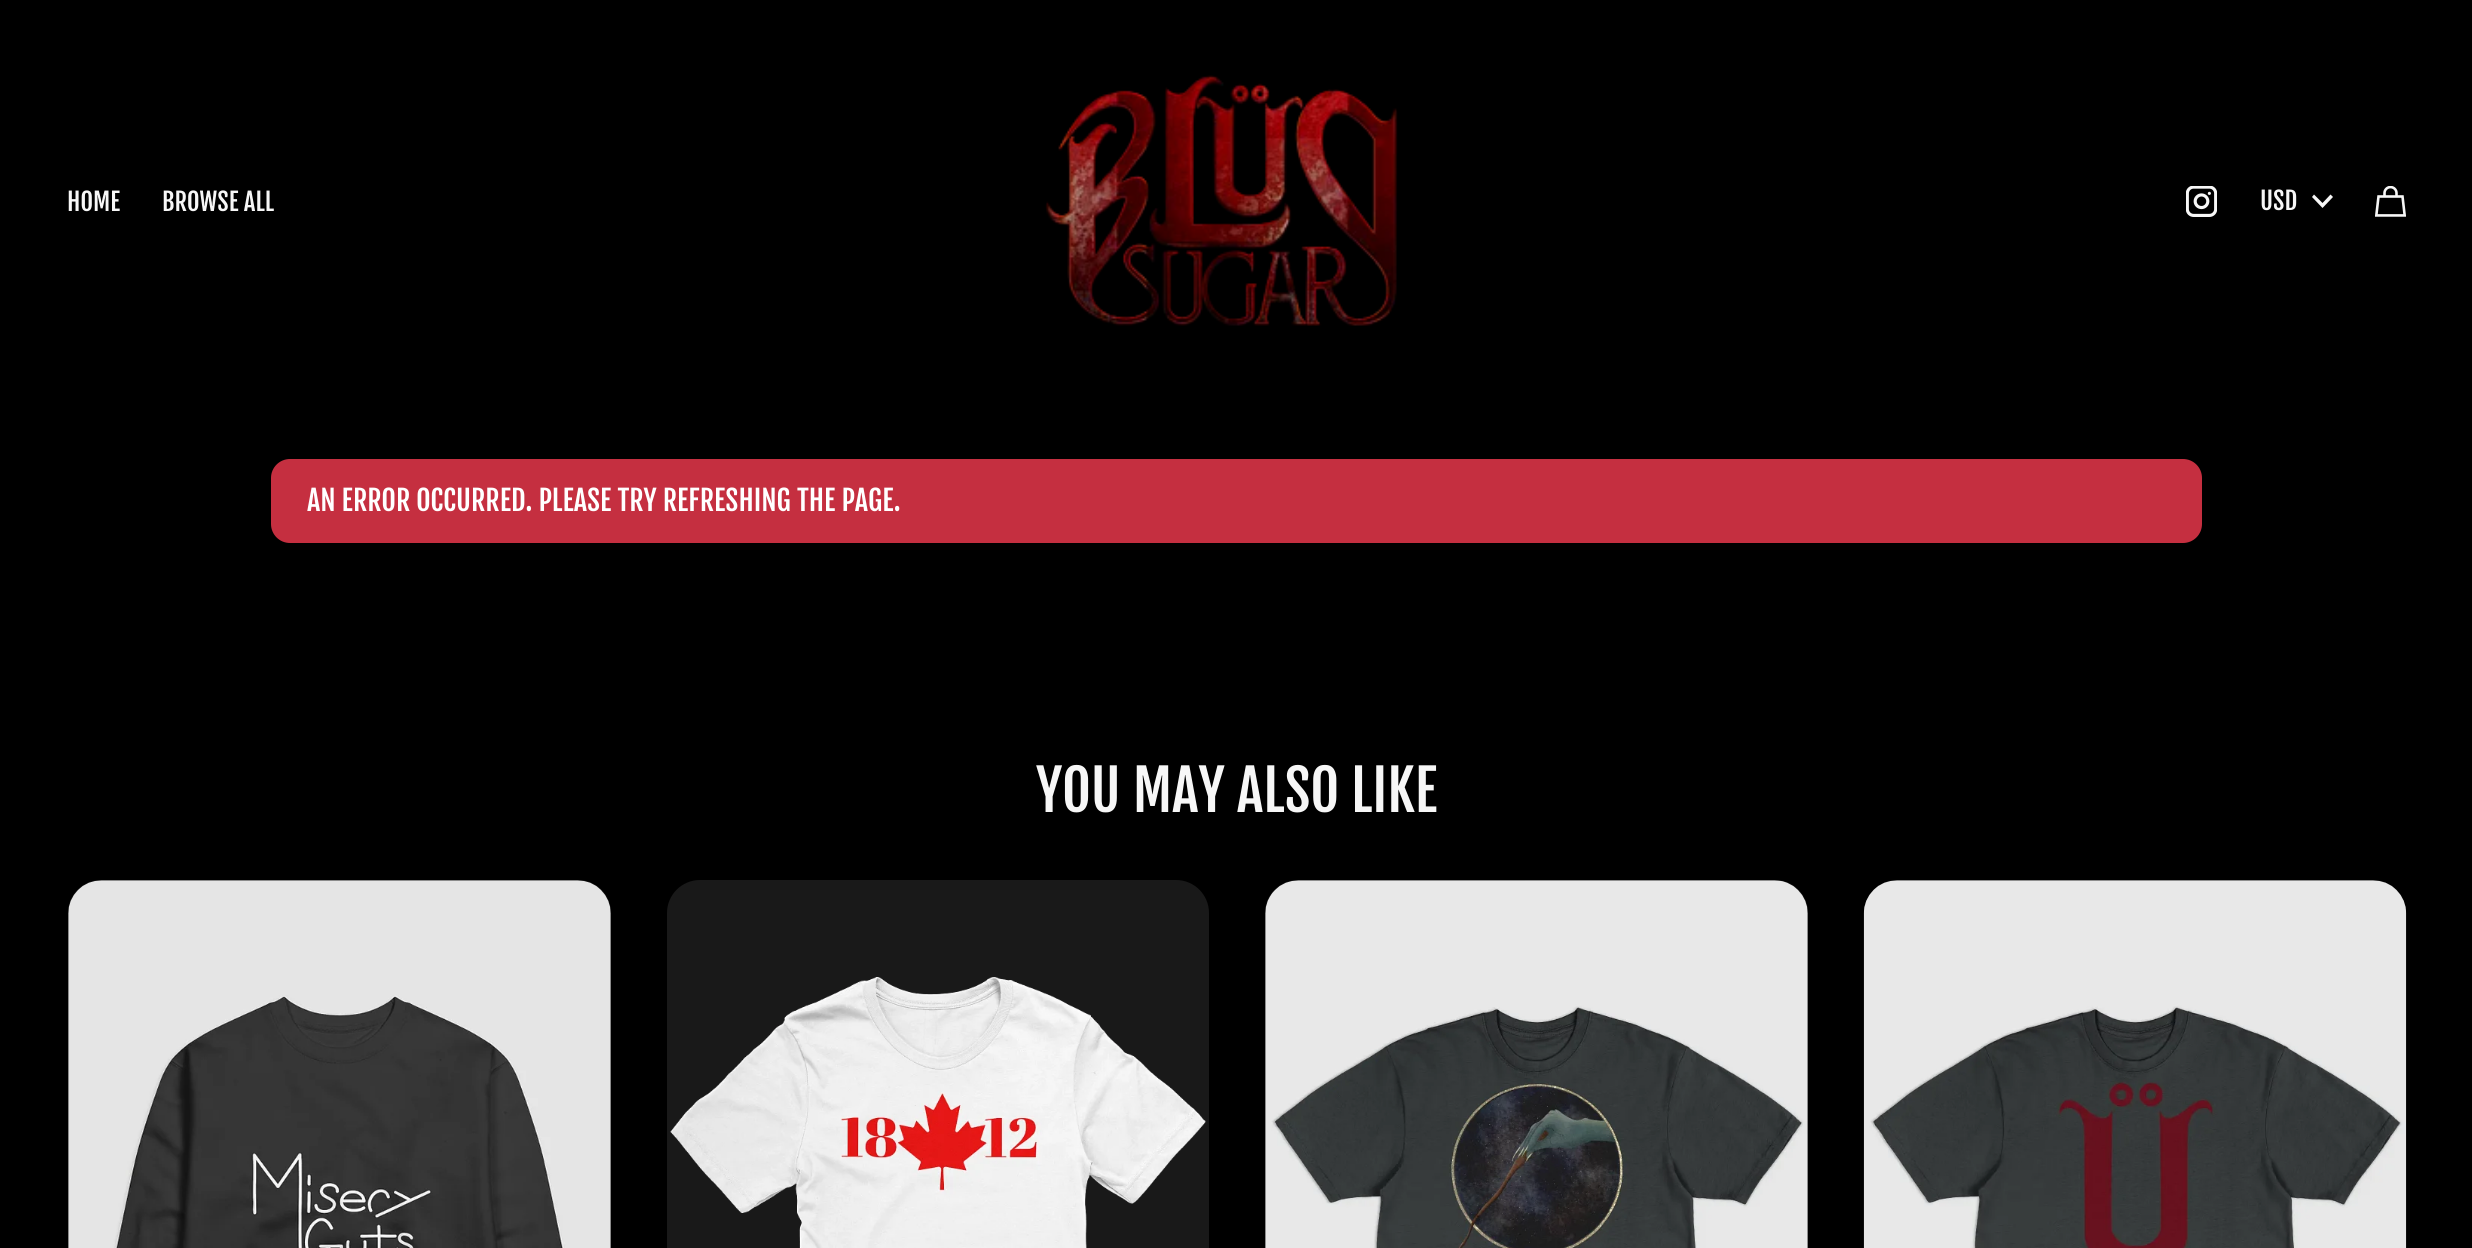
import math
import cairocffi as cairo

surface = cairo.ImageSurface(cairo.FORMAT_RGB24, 2472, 1248)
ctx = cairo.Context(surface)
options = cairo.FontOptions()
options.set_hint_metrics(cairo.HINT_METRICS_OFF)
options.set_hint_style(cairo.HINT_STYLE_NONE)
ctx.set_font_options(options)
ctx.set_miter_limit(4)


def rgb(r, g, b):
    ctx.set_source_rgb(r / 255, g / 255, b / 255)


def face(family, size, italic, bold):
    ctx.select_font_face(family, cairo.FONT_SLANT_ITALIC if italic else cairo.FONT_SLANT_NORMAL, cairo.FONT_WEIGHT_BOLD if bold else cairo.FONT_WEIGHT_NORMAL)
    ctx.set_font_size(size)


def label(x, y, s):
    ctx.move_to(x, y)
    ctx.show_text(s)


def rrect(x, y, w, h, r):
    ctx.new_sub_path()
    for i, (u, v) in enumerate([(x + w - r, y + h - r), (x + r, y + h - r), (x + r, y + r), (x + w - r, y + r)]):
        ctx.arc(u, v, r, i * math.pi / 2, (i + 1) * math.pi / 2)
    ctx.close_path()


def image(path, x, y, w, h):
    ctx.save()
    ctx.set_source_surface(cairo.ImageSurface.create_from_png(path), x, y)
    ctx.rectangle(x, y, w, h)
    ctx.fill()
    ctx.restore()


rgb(0, 0, 0)
ctx.paint()
face('Fjalla One', 24.5, 0, 0)
rgb(247, 247, 247)
label(67, 211, 'HOME')
label(162, 211, 'BROWSE ALL')
image('image0.png', 1045, 75, 353, 251)
image('image1.png', 2186, 186, 31, 31)
label(2260, 210, 'USD')
ctx.new_path()
ctx.move_to(2312, 197)
ctx.line_to(2314, 194.5)
ctx.line_to(2322.5, 203)
ctx.line_to(2330.5, 194.5)
ctx.line_to(2333, 197)
ctx.line_to(2322.5, 208)
ctx.close_path()
ctx.fill()
image('image2.png', 2375, 186, 31, 31)
rgb(197, 47, 64)
rrect(271, 459, 1931, 84, 19)
ctx.fill()
face('Fjalla One', 28, 0, 0)
rgb(255, 255, 255)
label(307, 511, 'AN ERROR OCCURRED. PLEASE TRY REFRESHING THE PAGE.')
face('Fjalla One', 56, 0, 0)
rgb(247, 247, 247)
label(1036, 812, 'YOU MAY ALSO LIKE')
rgb(25, 25, 25)
rrect(68, 880, 543, 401, 33)
ctx.fill()
image('image3.png', 68, 880, 543, 368)
rrect(667, 880, 542, 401, 33)
ctx.fill()
image('image4.png', 670, 977, 536, 271)
rrect(1265, 880, 543, 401, 33)
ctx.fill()
image('image5.png', 1265, 880, 543, 368)
rrect(1864, 880, 542, 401, 33)
ctx.fill()
image('image6.png', 1863, 880, 544, 368)
surface.write_to_png('render.png')
